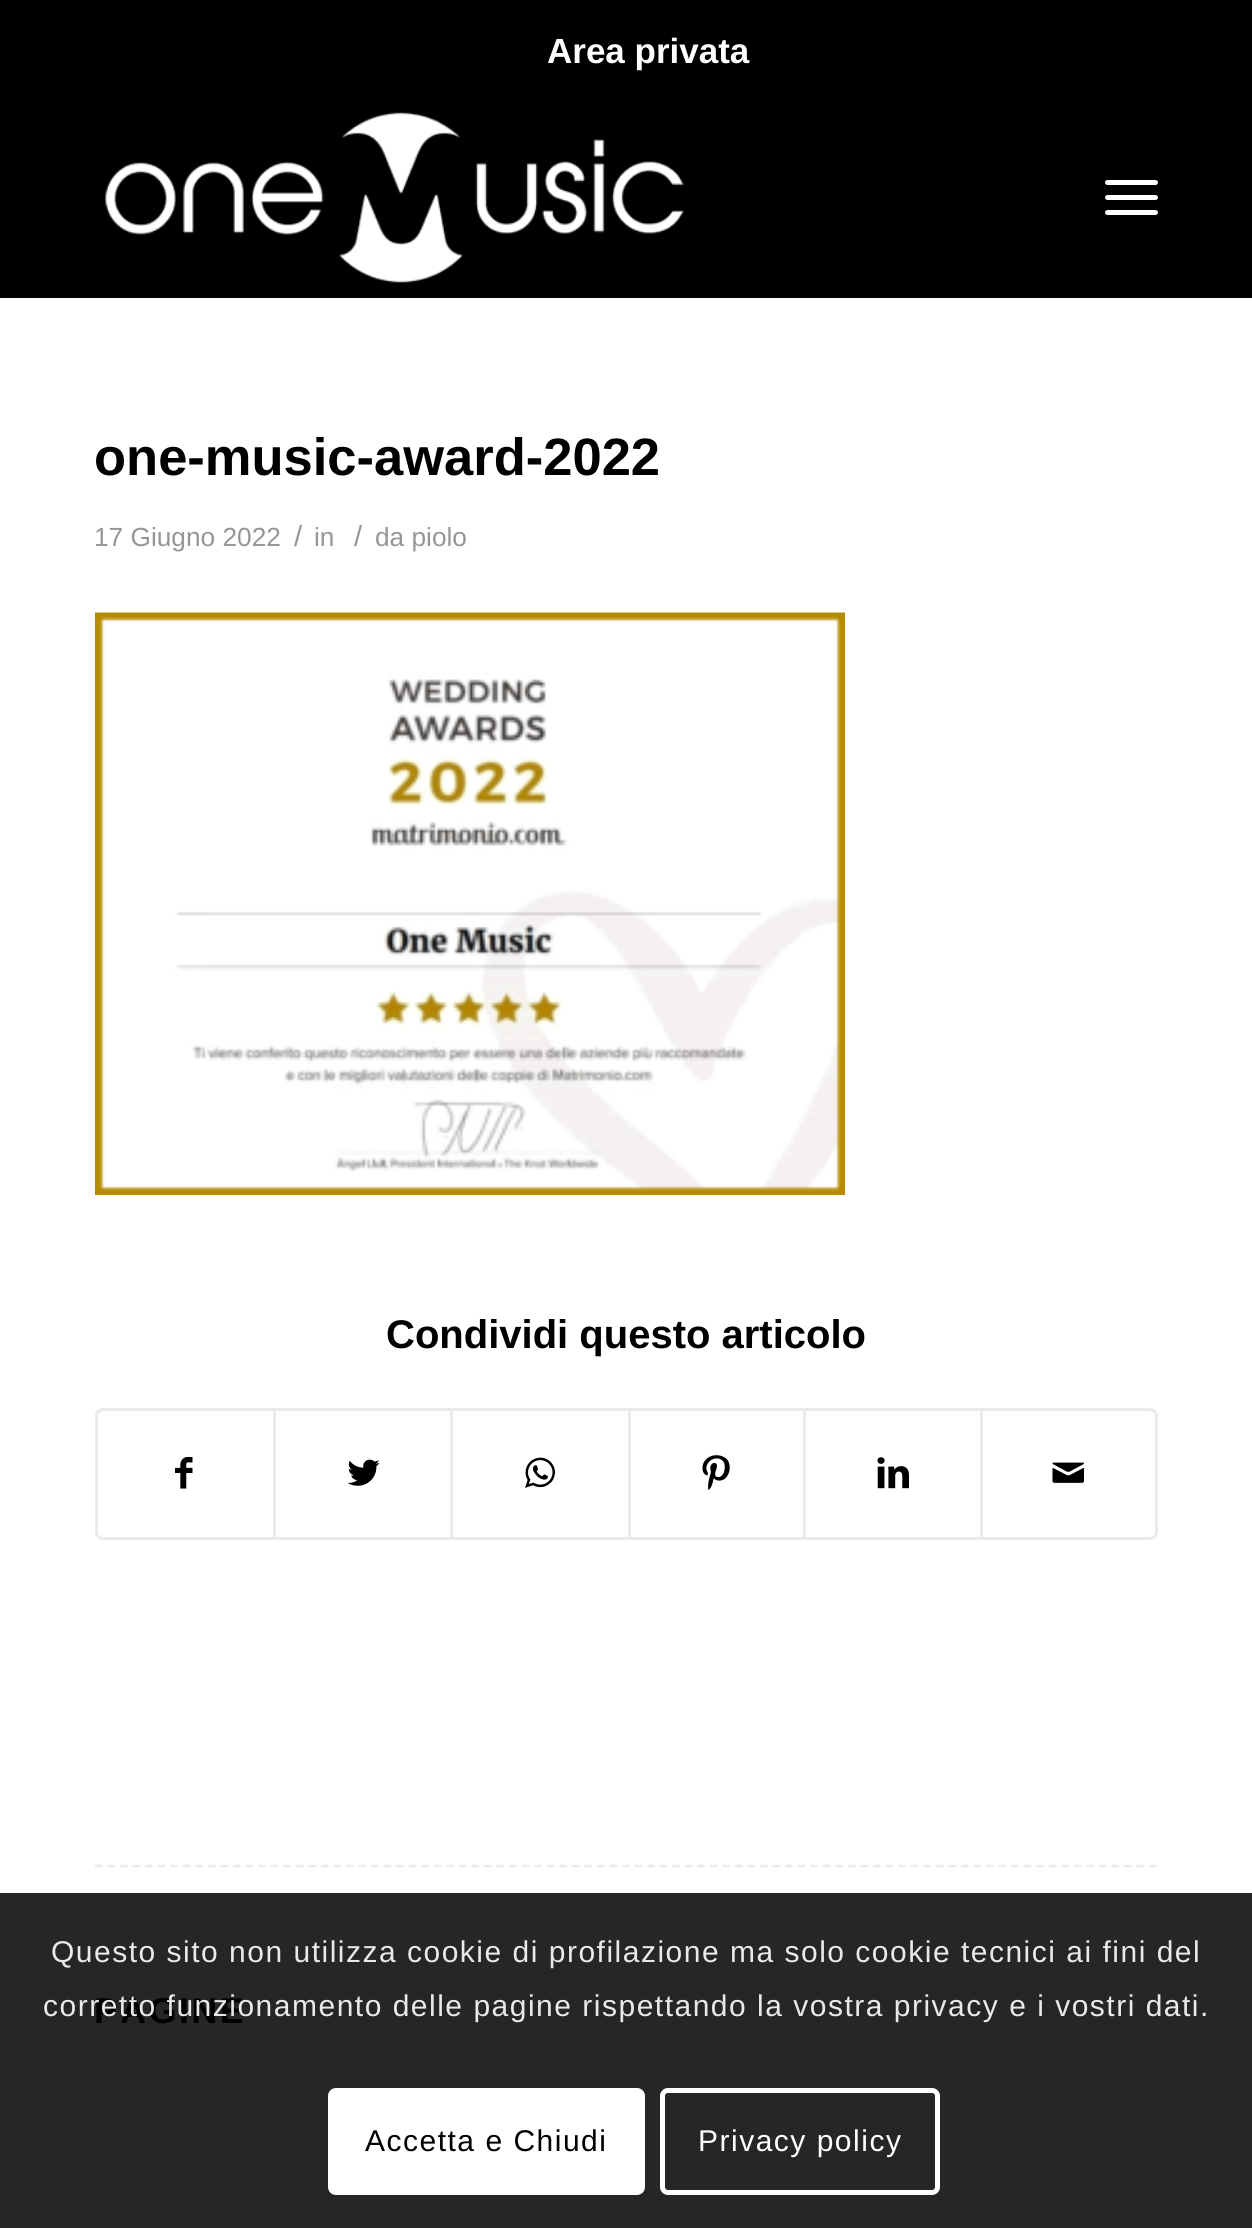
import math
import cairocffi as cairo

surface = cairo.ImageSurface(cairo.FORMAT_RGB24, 1252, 2228)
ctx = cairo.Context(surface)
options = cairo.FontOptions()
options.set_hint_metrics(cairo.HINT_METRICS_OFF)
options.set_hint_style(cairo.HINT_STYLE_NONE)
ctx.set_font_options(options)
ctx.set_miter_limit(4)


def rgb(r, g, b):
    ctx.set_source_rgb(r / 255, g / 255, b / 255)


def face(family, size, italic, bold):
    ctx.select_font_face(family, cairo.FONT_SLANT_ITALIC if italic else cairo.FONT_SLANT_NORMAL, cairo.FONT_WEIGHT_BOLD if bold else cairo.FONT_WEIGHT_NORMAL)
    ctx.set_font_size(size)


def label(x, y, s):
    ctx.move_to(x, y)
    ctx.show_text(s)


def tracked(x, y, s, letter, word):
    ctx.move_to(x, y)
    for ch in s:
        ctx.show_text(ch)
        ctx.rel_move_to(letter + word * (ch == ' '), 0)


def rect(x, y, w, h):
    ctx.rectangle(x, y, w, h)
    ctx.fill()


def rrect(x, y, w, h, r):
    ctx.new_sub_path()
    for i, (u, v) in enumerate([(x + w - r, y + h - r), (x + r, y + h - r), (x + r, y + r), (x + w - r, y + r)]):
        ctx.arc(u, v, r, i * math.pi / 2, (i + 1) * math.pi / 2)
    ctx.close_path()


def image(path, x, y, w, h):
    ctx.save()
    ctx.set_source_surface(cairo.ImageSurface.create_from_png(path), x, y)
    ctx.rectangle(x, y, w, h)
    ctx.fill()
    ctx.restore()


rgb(255, 255, 255)
ctx.paint()
rgb(38, 38, 38)
rect(0, 1893, 1252, 335)
rgb(0, 0, 0)
rect(0, 0, 1252, 298)
face('Liberation Sans', 35, 0, 1)
rgb(255, 255, 255)
label(547, 63, 'Area privata')
image('image0.png', 105, 112, 579, 171)
rrect(1105, 195, 53, 5, 2.5)
ctx.fill()
rrect(1105, 180, 53, 5, 2.5)
ctx.fill()
rrect(1105, 210, 53, 5, 2.5)
ctx.fill()
face('Liberation Sans', 52.5, 0, 1)
rgb(0, 0, 0)
label(94, 475, 'one-music-award-2022')
face('Liberation Sans', 26.25, 0, 0)
rgb(150, 150, 150)
label(94, 546, '17 Giugno 2022')
face('Liberation Sans', 29, 0, 0)
label(294, 546, '/')
face('Liberation Sans', 26.25, 0, 0)
label(314, 546, 'in')
face('Liberation Sans', 29, 0, 0)
label(354, 546, '/')
face('Liberation Sans', 26.25, 0, 0)
label(375, 546, 'da piolo')
image('image1.png', 95, 612, 750, 583)
face('Liberation Sans', 40, 0, 1)
rgb(0, 0, 0)
label(386, 1348, 'Condividi questo articolo')
rrect(96.5, 1409.5, 1060, 129, 6.5)
rgb(235, 235, 235)
ctx.set_line_width(3)
ctx.stroke()
image('image2.png', 175, 1457, 18, 32)
rect(273, 1410, 3, 128)
image('image3.png', 347, 1459, 33, 27)
rect(450, 1410, 3, 128)
image('image4.png', 525, 1457, 30, 31)
rect(628, 1410, 3, 128)
image('image5.png', 702, 1455, 28, 36)
rect(803, 1410, 3, 128)
image('image6.png', 877, 1457, 32, 32)
rect(980, 1410, 3, 128)
image('image7.png', 1052, 1462, 32, 21)
ctx.new_path()
ctx.move_to(95, 1866)
ctx.line_to(1157.5, 1866)
ctx.set_line_width(2.5)
ctx.set_dash([7.5, 5.05])
ctx.stroke()
face('Liberation Sans', 35.75, 0, 1)
rgb(0, 0, 0)
tracked(94, 2023, 'PAGINE', 2.5, 0)
face('Liberation Sans', 30, 0, 0)
rgb(233, 233, 233)
tracked(51, 1962, 'Questo sito non utilizza cookie di profilazione ma solo cookie tecnici ai fini del', 1.5, 0)
tracked(43, 2016, 'corretto funzionamento delle pagine rispettando la vostra privacy e i vostri dati.', 1.5, 0)
rgb(255, 255, 255)
rrect(328, 2088, 317, 107, 8)
ctx.fill()
rgb(0, 0, 0)
tracked(365, 2151, 'Accetta e Chiudi', 1.5, 0)
rrect(662.5, 2090.5, 275, 102, 5.5)
rgb(255, 255, 255)
ctx.set_line_width(5)
ctx.set_dash([])
ctx.stroke()
tracked(698, 2151, 'Privacy policy', 1.5, 0)
surface.write_to_png('render.png')
